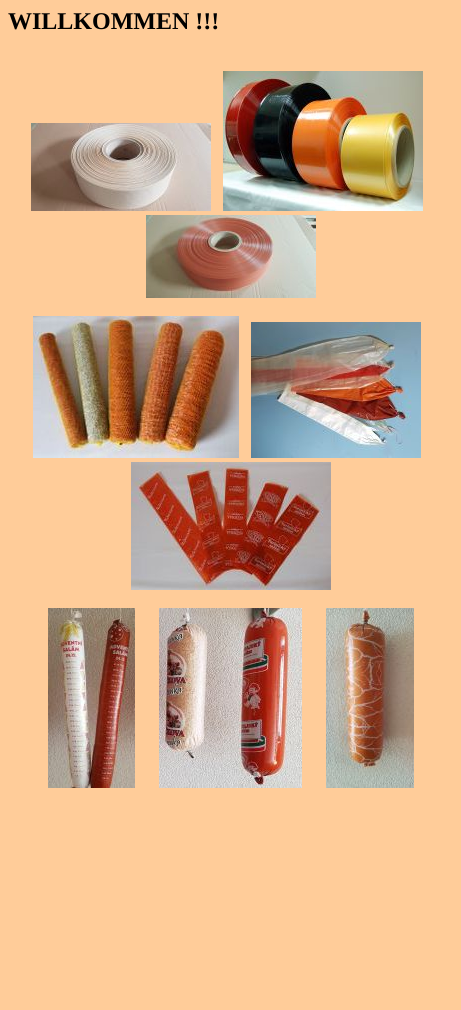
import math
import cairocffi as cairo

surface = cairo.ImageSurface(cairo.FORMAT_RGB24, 461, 1010)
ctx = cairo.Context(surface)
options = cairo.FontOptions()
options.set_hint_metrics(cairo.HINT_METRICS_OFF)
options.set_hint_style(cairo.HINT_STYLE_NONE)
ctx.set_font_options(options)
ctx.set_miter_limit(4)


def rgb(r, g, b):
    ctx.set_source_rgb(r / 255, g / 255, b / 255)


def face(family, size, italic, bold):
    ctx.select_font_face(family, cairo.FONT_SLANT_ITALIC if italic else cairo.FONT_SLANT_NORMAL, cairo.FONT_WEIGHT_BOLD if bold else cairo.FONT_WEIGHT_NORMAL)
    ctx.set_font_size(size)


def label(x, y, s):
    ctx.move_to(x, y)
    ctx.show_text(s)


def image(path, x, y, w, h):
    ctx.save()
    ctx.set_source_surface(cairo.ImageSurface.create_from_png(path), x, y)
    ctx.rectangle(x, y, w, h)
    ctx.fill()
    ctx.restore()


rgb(255, 204, 153)
ctx.paint()
face('Liberation Serif', 24, 0, 1)
rgb(0, 0, 0)
label(8, 29, 'WILLKOMMEN !!!')
image('image0.png', 31, 123, 180, 88)
image('image1.png', 223, 71, 200, 140)
image('image2.png', 146, 215, 170, 83)
image('image3.png', 33, 316, 206, 142)
image('image4.png', 251, 322, 170, 136)
image('image5.png', 131, 462, 200, 128)
image('image6.png', 48, 608, 87, 180)
image('image7.png', 159, 608, 143, 180)
image('image8.png', 326, 608, 88, 180)
surface.write_to_png('render.png')
